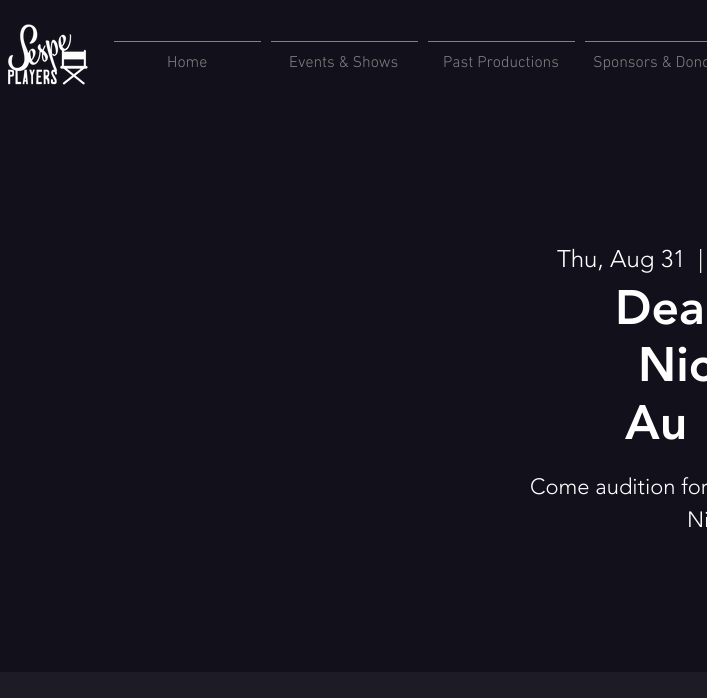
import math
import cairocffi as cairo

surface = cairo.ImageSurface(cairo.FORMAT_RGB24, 707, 698)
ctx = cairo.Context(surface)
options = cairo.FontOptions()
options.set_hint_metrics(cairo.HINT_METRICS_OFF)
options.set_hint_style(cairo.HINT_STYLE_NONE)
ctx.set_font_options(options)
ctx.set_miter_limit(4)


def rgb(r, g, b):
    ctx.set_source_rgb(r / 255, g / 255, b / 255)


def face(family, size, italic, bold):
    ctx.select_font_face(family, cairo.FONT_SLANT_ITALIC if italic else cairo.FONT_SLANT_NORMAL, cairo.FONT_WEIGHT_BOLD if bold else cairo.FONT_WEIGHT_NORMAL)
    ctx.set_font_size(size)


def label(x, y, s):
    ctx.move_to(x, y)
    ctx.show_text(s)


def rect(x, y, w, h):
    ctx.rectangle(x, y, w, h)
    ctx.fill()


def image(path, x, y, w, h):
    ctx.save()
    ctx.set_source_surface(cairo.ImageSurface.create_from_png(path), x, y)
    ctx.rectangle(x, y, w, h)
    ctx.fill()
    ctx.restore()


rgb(18, 16, 27)
ctx.paint()
image('image0.png', 8, 24, 80, 61)
rgb(128, 128, 128)
rect(114, 41, 147, 1)
face('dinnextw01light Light', 16, 0, 0)
label(167, 67, 'Home')
rect(271, 41, 147, 1)
label(289, 67, 'Events & Shows')
rect(428, 41, 147, 1)
label(443, 67, 'Past Productions')
rect(585, 41, 122, 1)
label(593, 67, 'Sponsors & Dono')
face('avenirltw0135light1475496 Light', 24, 0, 0)
rgb(255, 255, 255)
label(557, 267, 'Thu, Aug 31')
label(698, 267, '|')
face('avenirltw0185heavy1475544 Black', 48, 0, 0)
label(615, 324, 'Dea')
label(638, 381, 'Nic')
label(625, 439, 'Au')
face('avenirltw0135light1475496 Light', 22, 0, 0)
label(530, 494, 'Come audition for')
label(687, 527, 'Ni')
rgb(29, 27, 38)
rect(0, 672, 707, 26)
surface.write_to_png('render.png')
